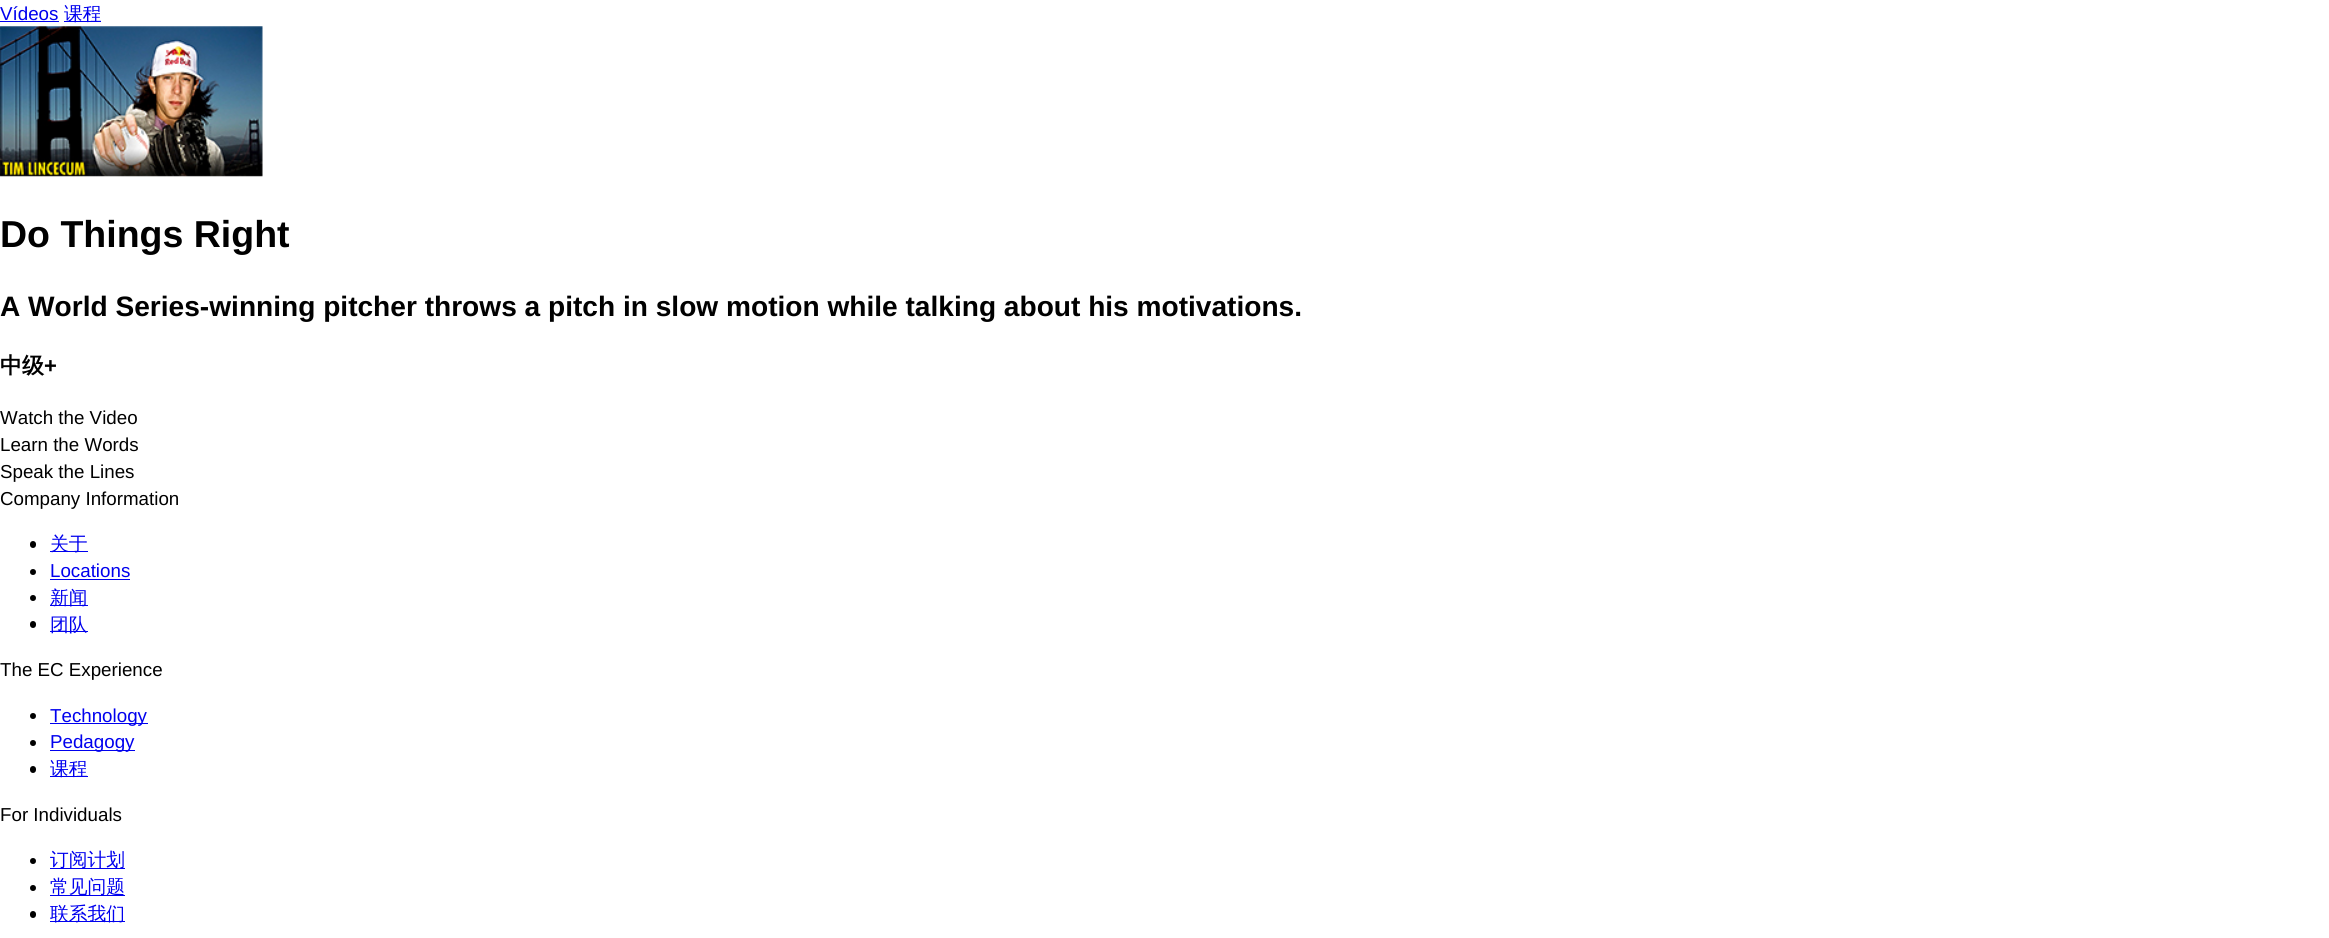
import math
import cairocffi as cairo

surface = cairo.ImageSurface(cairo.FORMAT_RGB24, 2329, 938)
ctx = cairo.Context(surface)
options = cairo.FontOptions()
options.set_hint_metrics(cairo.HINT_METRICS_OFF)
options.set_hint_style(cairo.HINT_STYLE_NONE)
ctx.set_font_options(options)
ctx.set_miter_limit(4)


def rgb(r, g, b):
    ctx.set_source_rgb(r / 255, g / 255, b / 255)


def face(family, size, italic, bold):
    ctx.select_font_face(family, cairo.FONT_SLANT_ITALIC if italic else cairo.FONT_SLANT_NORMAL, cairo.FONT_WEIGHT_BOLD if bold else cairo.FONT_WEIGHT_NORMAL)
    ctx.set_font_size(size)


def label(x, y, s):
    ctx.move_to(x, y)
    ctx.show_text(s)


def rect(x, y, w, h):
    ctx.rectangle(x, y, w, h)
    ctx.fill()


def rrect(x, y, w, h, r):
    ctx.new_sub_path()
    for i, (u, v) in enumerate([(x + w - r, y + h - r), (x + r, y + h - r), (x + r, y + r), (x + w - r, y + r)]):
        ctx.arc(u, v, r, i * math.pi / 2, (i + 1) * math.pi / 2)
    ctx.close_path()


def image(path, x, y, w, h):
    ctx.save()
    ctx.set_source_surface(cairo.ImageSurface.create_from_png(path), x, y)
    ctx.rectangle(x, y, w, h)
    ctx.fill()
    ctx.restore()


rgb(255, 255, 255)
ctx.paint()
face('Liberation Sans', 18.75, 0, 0)
rgb(0, 0, 238)
label(0, 20, 'Vídeos')
rect(0, 21, 59, 1)
rect(64, 21, 37, 1)
face('WenQuanYi Zen Hei Medium', 18.75, 0, 0)
label(64, 20, '课程')
image('image0.png', 0, 26, 263, 151)
face('Liberation Sans', 37.5, 0, 1)
rgb(0, 0, 0)
label(0, 247, 'Do Things Right')
face('Liberation Sans', 28.1, 0, 1)
label(0, 316, 'A World Series-winning pitcher throws a pitch in slow motion while talking about his motivations.')
face('WenQuanYi Zen Hei', 22, 0, 1)
label(0, 373, '中级')
face('Liberation Sans', 22, 0, 1)
label(44, 373, '+')
face('Liberation Sans', 18.75, 0, 0)
label(0, 424, 'Watch the Video')
label(0, 451, 'Learn the Words')
label(0, 478, 'Speak the Lines')
label(0, 505, 'Company Information')
rrect(30, 541, 6, 7, 3)
ctx.fill()
rgb(0, 0, 238)
rect(50, 551, 38, 1)
face('WenQuanYi Zen Hei Medium', 18.75, 0, 0)
label(50, 550, '关于')
rgb(0, 0, 0)
ctx.new_path()
ctx.arc(33, 572, 3, 0, 2 * math.pi)
ctx.fill()
face('Liberation Sans', 18.75, 0, 0)
rgb(0, 0, 238)
label(50, 577, 'Locations')
rect(50, 579, 80, 1)
rgb(0, 0, 0)
ctx.new_path()
ctx.arc(33, 598, 3, 0, 2 * math.pi)
ctx.fill()
rgb(0, 0, 238)
rect(50, 605, 38, 1)
face('WenQuanYi Zen Hei Medium', 18.75, 0, 0)
label(50, 604, '新闻')
rgb(0, 0, 0)
rrect(30, 621, 6, 7, 3)
ctx.fill()
rgb(0, 0, 238)
rect(50, 631, 38, 1)
label(50, 631, '团队')
face('Liberation Sans', 18.75, 0, 0)
rgb(0, 0, 0)
label(0, 676, 'The EC Experience')
ctx.new_path()
ctx.arc(33, 716, 3, 0, 2 * math.pi)
ctx.fill()
rgb(0, 0, 238)
rect(50, 723, 98, 1)
label(50, 722, 'Technology')
rgb(0, 0, 0)
ctx.new_path()
ctx.arc(33, 743, 3, 0, 2 * math.pi)
ctx.fill()
rgb(0, 0, 238)
rect(50, 750, 85, 1)
label(50, 748, 'Pedagogy')
rgb(0, 0, 0)
rrect(30, 766, 6, 7, 3)
ctx.fill()
rgb(0, 0, 238)
rect(50, 776, 38, 1)
face('WenQuanYi Zen Hei Medium', 18.75, 0, 0)
label(50, 775, '课程')
face('Liberation Sans', 18.75, 0, 0)
rgb(0, 0, 0)
label(0, 821, 'For Individuals')
ctx.new_path()
ctx.arc(33, 861, 3, 0, 2 * math.pi)
ctx.fill()
rgb(0, 0, 238)
rect(50, 868, 75, 1)
face('WenQuanYi Zen Hei Medium', 18.75, 0, 0)
label(50, 866, '订阅计划')
rgb(0, 0, 0)
ctx.new_path()
ctx.arc(33, 888, 3, 0, 2 * math.pi)
ctx.fill()
rgb(0, 0, 238)
rect(50, 895, 75, 1)
label(50, 893, '常见问题')
rgb(0, 0, 0)
rrect(30, 911, 6, 7, 3)
ctx.fill()
rgb(0, 0, 238)
rect(50, 921, 75, 1)
label(50, 920, '联系我们')
surface.write_to_png('render.png')
